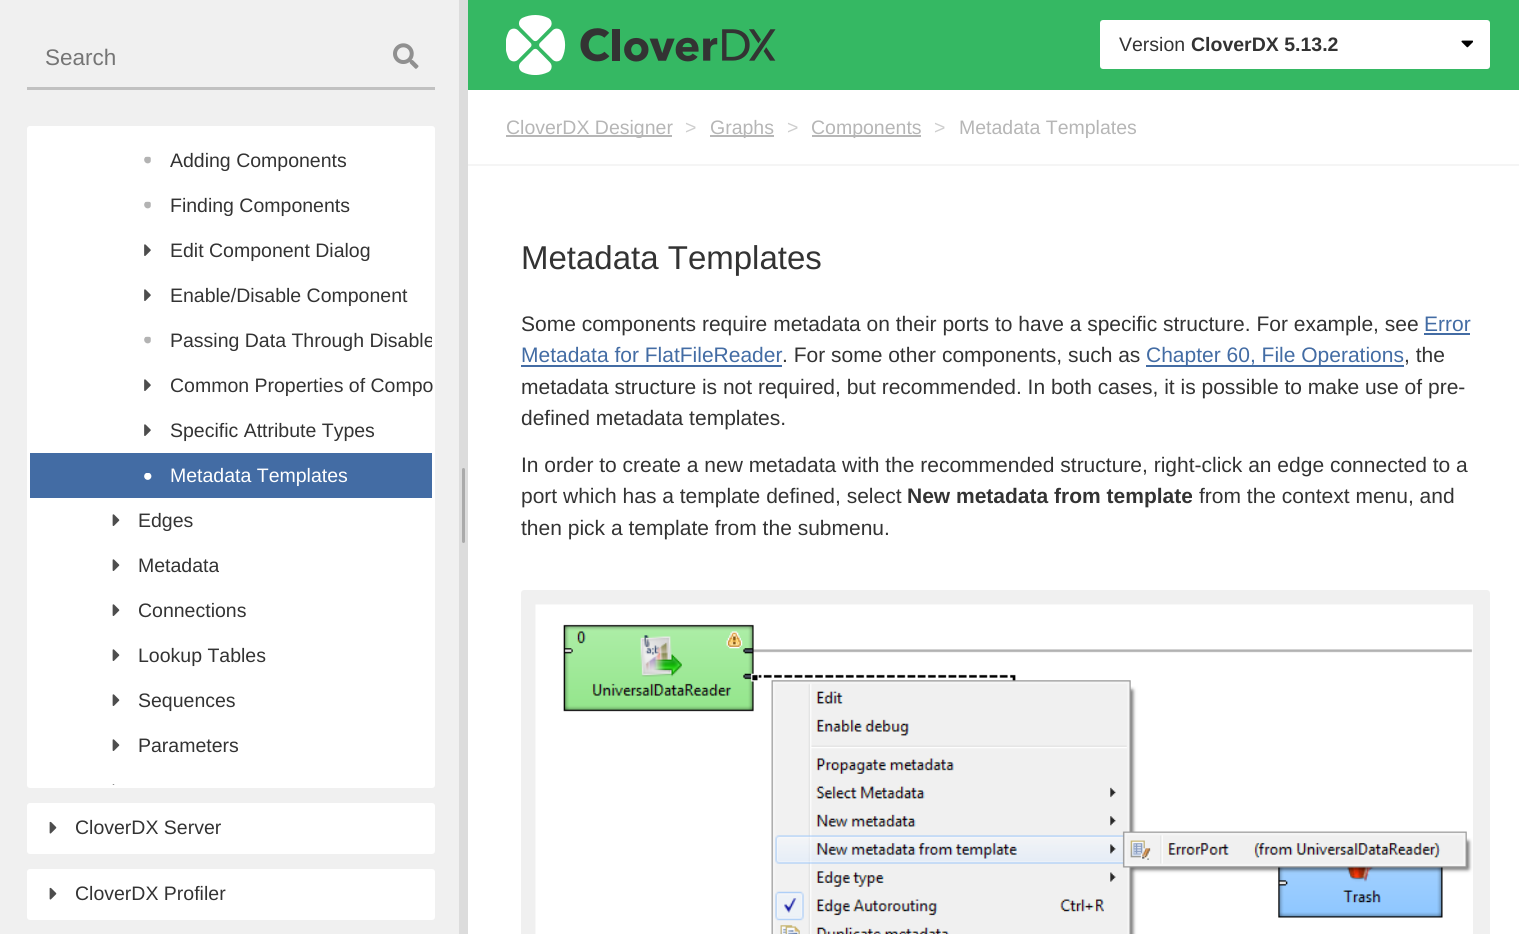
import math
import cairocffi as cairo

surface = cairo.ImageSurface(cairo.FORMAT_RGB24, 1519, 934)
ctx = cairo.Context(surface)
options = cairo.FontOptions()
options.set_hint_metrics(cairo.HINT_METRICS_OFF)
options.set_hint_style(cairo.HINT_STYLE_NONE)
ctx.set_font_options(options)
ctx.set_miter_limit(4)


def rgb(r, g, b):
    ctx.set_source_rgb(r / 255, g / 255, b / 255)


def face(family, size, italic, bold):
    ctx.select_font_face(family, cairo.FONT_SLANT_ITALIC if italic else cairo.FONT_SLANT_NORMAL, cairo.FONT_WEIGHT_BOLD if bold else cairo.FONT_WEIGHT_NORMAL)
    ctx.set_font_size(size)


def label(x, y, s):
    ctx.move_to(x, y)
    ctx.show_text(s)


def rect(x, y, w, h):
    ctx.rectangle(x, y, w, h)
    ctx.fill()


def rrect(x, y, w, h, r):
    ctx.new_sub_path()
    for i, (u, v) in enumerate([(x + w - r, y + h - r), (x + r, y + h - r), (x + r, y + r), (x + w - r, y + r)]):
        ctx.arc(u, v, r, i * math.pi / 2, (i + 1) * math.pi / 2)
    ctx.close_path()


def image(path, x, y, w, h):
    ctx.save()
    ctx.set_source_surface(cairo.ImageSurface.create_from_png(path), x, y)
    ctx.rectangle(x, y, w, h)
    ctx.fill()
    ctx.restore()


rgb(255, 255, 255)
ctx.paint()
rgb(240, 240, 240)
rect(0, 0, 459, 934)
rgb(193, 193, 193)
rect(27, 87, 408, 3)
face('Liberation Sans', 22.5, 0, 0)
rgb(117, 117, 117)
label(45, 65, 'Search')
image('image0.png', 393, 43, 26, 26)
rgb(255, 255, 255)
rrect(28.5, 127.5, 405, 659, 1.5)
ctx.fill_preserve()
ctx.set_line_width(3)
ctx.stroke()
image('image1.png', 144, 156, 7, 8)
face('Liberation Sans', 19.5, 0, 0)
rgb(51, 51, 51)
label(170, 167, 'Adding Components')
image('image1.png', 144, 201, 7, 8)
label(170, 212, 'Finding Components')
image('image2.png', 144, 244, 7, 12)
label(170, 257, 'Edit Component Dialog')
image('image2.png', 144, 289, 7, 12)
label(170, 302, 'Enable/Disable Component')
image('image1.png', 144, 336, 7, 8)
ctx.save()
ctx.rectangle(30, 129, 402, 656)
ctx.clip()
label(170, 347, 'Passing Data Through Disable')
ctx.restore()
image('image2.png', 144, 379, 7, 12)
label(170, 392, 'Common Properties of Compo')
image('image2.png', 144, 424, 7, 12)
label(170, 437, 'Specific Attribute Types')
rgb(67, 108, 164)
rect(30, 453, 402, 45)
image('image3.png', 144, 473, 8, 7)
rgb(255, 255, 255)
label(170, 482, 'Metadata Templates')
image('image4.png', 112, 514, 8, 12)
rgb(51, 51, 51)
label(138, 527, 'Edges')
image('image4.png', 112, 559, 8, 12)
label(138, 572, 'Metadata')
image('image4.png', 112, 604, 8, 12)
label(138, 617, 'Connections')
image('image4.png', 112, 649, 8, 12)
label(138, 662, 'Lookup Tables')
image('image4.png', 112, 694, 8, 12)
label(138, 707, 'Sequences')
image('image4.png', 112, 739, 8, 12)
label(138, 752, 'Parameters')
image('image5.png', 112, 784, 3, 1)
rgb(255, 255, 255)
rrect(28.5, 804.5, 405, 48, 1.5)
ctx.fill_preserve()
ctx.stroke()
image('image6.png', 49, 821, 8, 13)
rgb(51, 51, 51)
label(75, 834, 'CloverDX Server')
rgb(255, 255, 255)
rrect(28.5, 870.5, 405, 48, 1.5)
ctx.fill_preserve()
ctx.stroke()
image('image6.png', 49, 887, 8, 13)
rgb(51, 51, 51)
label(75, 900, 'CloverDX Profiler')
rgb(220, 220, 220)
rect(459, 0, 9, 934)
rgb(170, 170, 170)
rrect(462, 468, 3, 75, 1.5)
ctx.fill()
rgb(53, 184, 99)
rect(468, 0, 1051, 90)
image('image7.png', 506, 15, 270, 60)
rgb(255, 255, 255)
rrect(1100, 20, 390, 49, 3)
ctx.fill()
rgb(51, 51, 51)
label(1119, 51, 'Version')
face('Liberation Sans', 19.5, 0, 1)
label(1191, 51, 'CloverDX 5.13.2')
image('image8.png', 1461, 40, 12, 8)
rgb(245, 245, 245)
rect(468, 164, 1051, 2)
rgb(182, 182, 182)
rect(506, 135, 166, 2)
face('Liberation Sans', 19.5, 0, 0)
label(506, 134, 'CloverDX Designer')
rgb(206, 206, 206)
label(685, 134, '>')
rgb(182, 182, 182)
rect(710, 135, 64, 2)
label(710, 134, 'Graphs')
rgb(206, 206, 206)
label(787, 134, '>')
rgb(182, 182, 182)
rect(812, 135, 109, 2)
label(811, 134, 'Components')
rgb(206, 206, 206)
label(934, 134, '>')
rgb(182, 182, 182)
label(959, 134, 'Metadata Templates')
face('Liberation Sans', 33, 0, 0)
rgb(51, 51, 51)
label(521, 269, 'Metadata Templates')
face('Liberation Sans', 21, 0, 0)
label(521, 331, 'Some components require metadata on their ports to have a specific structure. For example, see')
rgb(67, 108, 164)
label(1424, 331, 'Error')
rect(1424, 333, 46, 2)
label(521, 362, 'Metadata for FlatFileReader')
rect(521, 365, 261, 2)
rgb(51, 51, 51)
label(782, 362, '. For some other components, such as')
rgb(67, 108, 164)
rect(1146, 365, 258, 2)
label(1146, 362, 'Chapter 60, File Operations')
rgb(51, 51, 51)
label(1404, 362, ', the')
label(521, 394, 'metadata structure is not required, but recommended. In both cases, it is possible to make use of pre-')
label(521, 425, 'defined metadata templates.')
label(521, 472, 'In order to create a new metadata with the recommended structure, right-click an edge connected to a')
label(521, 503, 'port which has a template defined, select')
face('Liberation Sans', 21, 0, 1)
label(907, 503, 'New metadata from template')
face('Liberation Sans', 21, 0, 0)
label(1199, 503, 'from the context menu, and')
label(521, 535, 'then pick a template from the submenu.')
rgb(240, 240, 240)
ctx.new_path()
ctx.move_to(524, 590)
ctx.line_to(1487, 590)
ctx.curve_to(1488.5, 590, 1490, 591.5, 1490, 593)
ctx.line_to(1490, 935)
ctx.line_to(521, 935)
ctx.line_to(521, 593)
ctx.curve_to(521, 591.5, 522.5, 590, 524, 590)
ctx.close_path()
ctx.fill()
image('image9.png', 535, 604, 938, 330)
surface.write_to_png('render.png')
